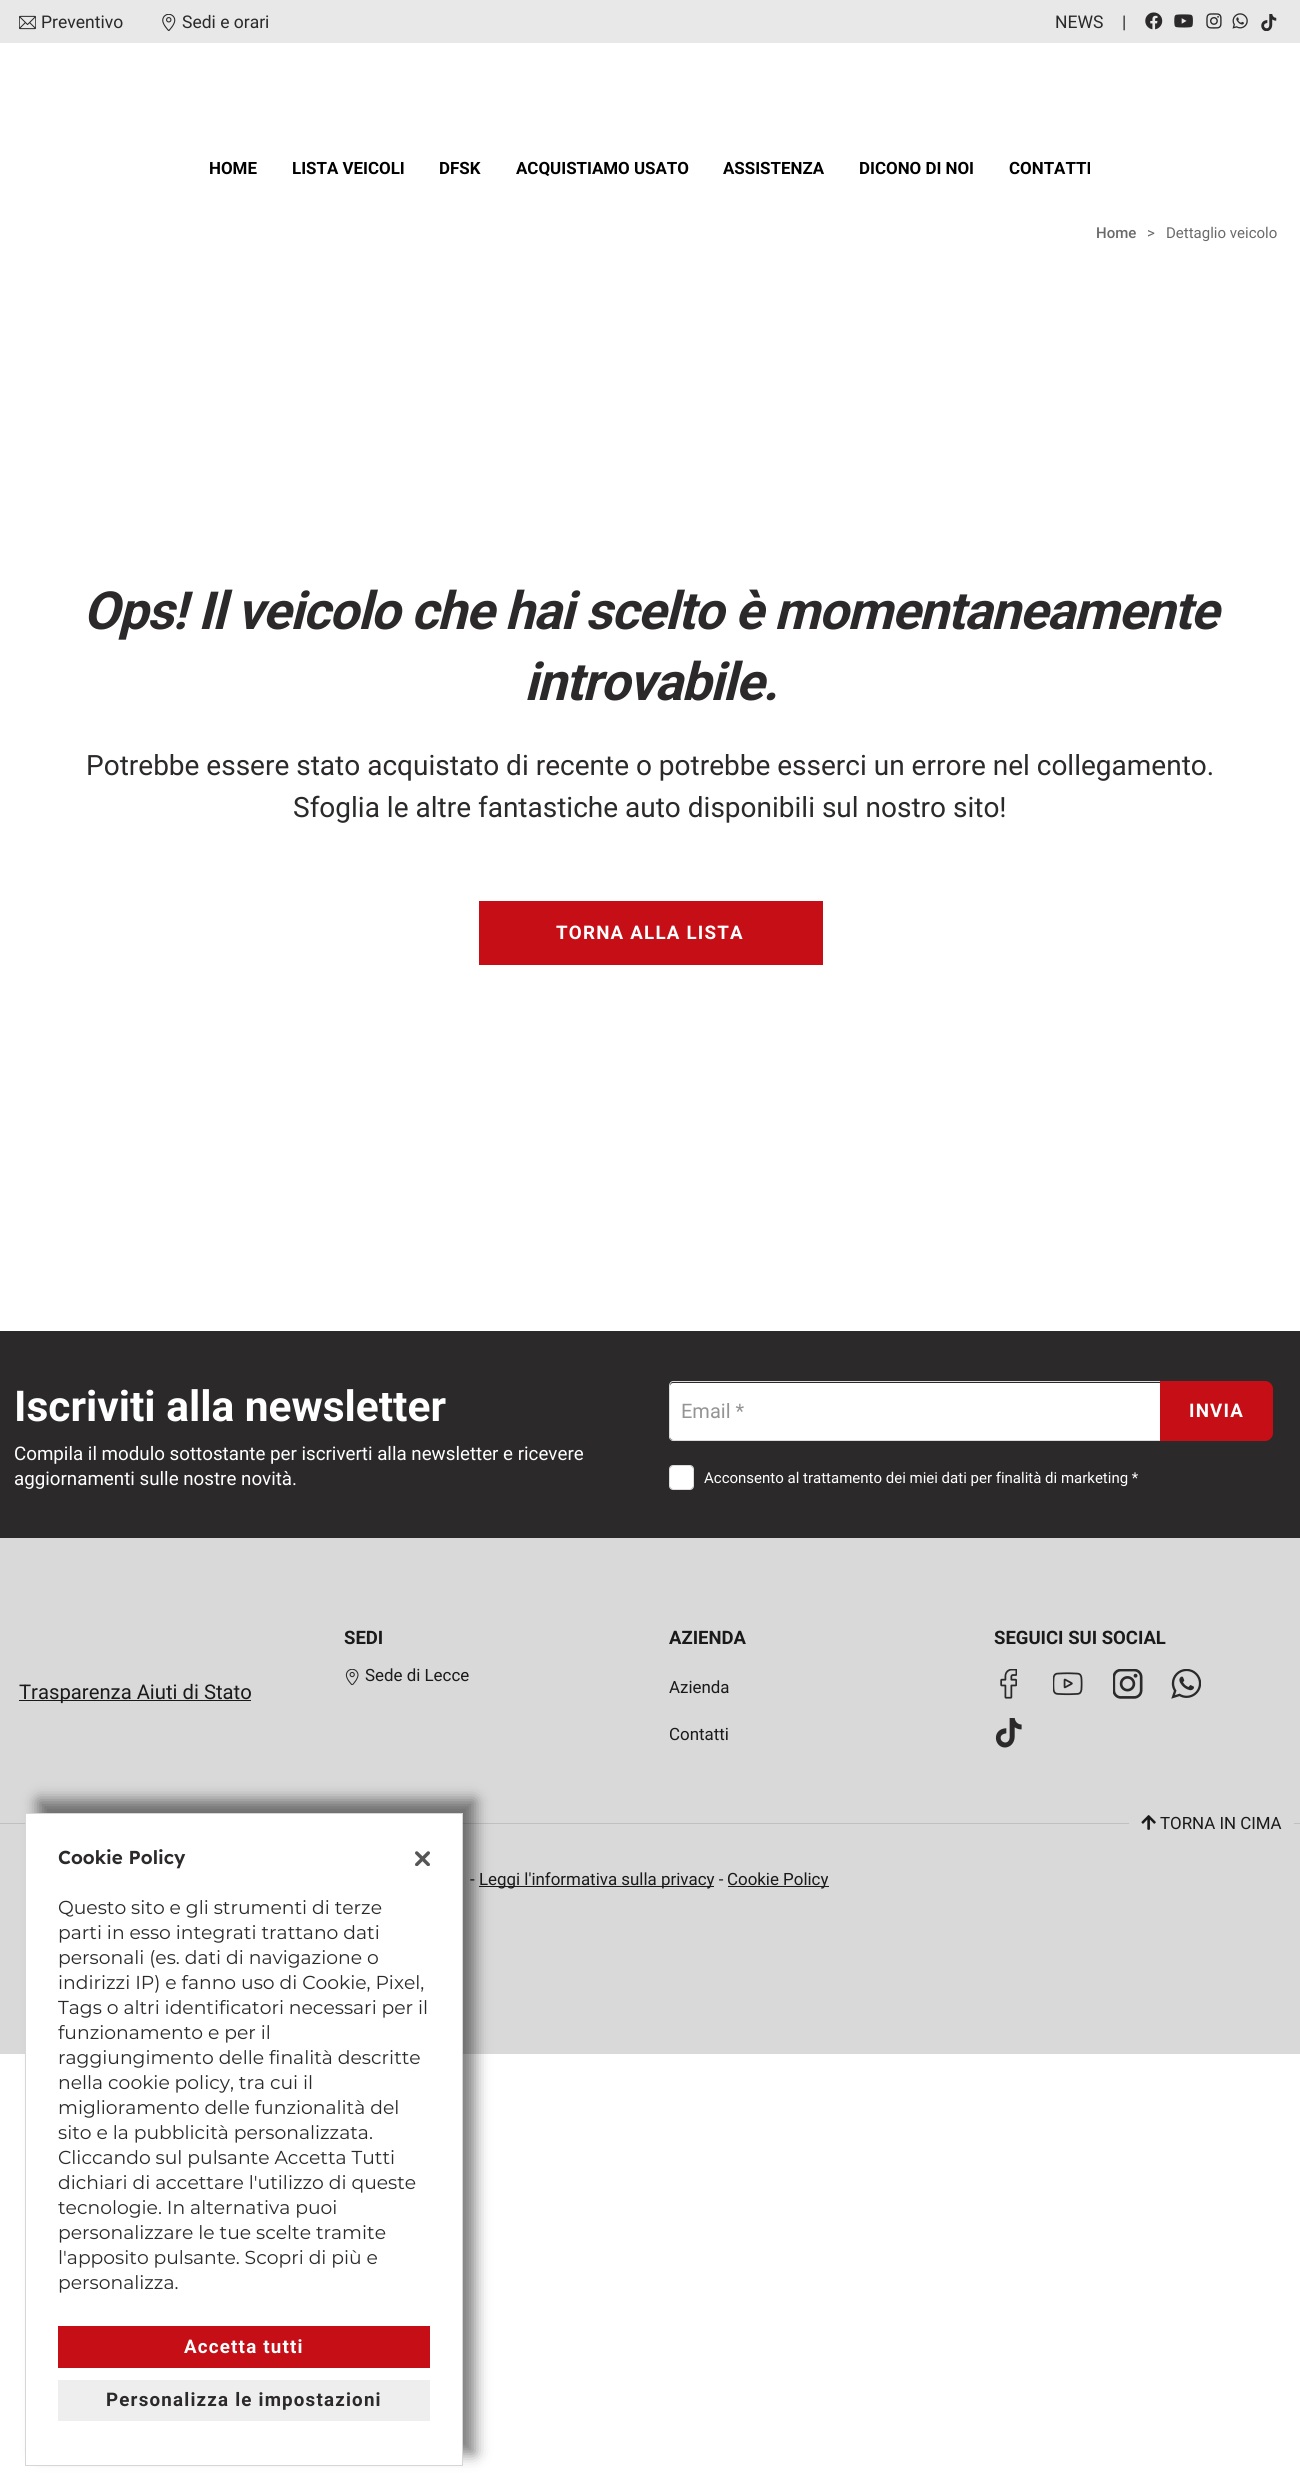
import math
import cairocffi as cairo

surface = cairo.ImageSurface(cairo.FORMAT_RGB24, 1300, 2491)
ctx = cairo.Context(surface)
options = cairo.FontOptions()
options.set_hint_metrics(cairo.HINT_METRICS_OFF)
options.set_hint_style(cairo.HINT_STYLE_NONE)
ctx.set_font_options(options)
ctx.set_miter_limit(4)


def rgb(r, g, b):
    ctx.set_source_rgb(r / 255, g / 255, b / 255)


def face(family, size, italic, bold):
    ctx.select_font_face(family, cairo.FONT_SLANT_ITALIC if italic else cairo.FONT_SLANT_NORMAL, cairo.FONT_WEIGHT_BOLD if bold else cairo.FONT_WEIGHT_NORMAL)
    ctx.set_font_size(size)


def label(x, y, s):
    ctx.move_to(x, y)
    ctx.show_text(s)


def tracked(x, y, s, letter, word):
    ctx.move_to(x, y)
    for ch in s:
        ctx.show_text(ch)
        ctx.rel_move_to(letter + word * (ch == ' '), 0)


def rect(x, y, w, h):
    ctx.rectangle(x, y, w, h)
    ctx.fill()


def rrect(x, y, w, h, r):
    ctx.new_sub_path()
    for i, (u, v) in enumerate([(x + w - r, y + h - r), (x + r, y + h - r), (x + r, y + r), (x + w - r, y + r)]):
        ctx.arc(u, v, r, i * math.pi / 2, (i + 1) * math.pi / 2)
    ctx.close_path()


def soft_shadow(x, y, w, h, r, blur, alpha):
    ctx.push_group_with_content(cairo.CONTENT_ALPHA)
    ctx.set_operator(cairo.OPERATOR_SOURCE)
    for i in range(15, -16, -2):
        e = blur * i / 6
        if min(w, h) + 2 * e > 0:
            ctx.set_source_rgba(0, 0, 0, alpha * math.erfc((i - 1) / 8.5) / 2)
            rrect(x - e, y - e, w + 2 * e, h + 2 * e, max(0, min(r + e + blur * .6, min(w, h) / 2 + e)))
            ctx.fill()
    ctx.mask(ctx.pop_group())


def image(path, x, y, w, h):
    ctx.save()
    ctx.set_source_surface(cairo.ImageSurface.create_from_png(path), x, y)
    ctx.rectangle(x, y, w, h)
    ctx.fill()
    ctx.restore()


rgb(255, 255, 255)
ctx.paint()
rgb(232, 232, 232)
rect(0, 0, 1300, 43)
image('image0.png', 19, 15, 17, 15)
face('Roboto', 17.5, 0, 0)
rgb(43, 41, 41)
label(41, 28, 'Preventivo')
image('image1.png', 162, 14, 14, 17)
label(182, 28, 'Sedi e orari')
label(1055, 28, 'NEWS')
label(1122, 28, '|')
image('image2.png', 1145, 12, 18, 18)
image('image3.png', 1174, 14, 19, 14)
image('image4.png', 1206, 13, 16, 16)
image('image5.png', 1232, 13, 16, 16)
image('image6.png', 1261, 14, 16, 17)
face('Roboto', 16.9, 0, 1)
rgb(0, 0, 0)
label(209, 174, 'HOME')
label(292, 174, 'LISTA VEICOLI')
label(439, 174, 'DFSK')
label(516, 174, 'ACQUISTIAMO USATO')
label(723, 174, 'ASSISTENZA')
label(859, 174, 'DICONO DI NOI')
label(1009, 174, 'CONTATTI')
face('Roboto Medium', 15, 0, 0)
rgb(107, 105, 105)
label(1096, 238, 'Home')
face('Roboto', 15, 0, 0)
label(1147, 238, '>')
label(1166, 238, 'Dettaglio veicolo')
face('Roboto', 52.5, 1, 1)
rgb(43, 41, 41)
tracked(83, 629, 'Ops! Il veicolo che hai scelto è momentaneamente', -1.05, 0)
tracked(524, 700, 'introvabile.', -1.05, 0)
face('Roboto', 28, 0, 0)
label(86, 775, 'Potrebbe essere stato acquistato di recente o potrebbe esserci un errore nel collegamento.')
label(293, 817, 'Sfoglia le altre fantastiche auto disponibili sul nostro sito!')
rgb(198, 14, 22)
rect(479, 901, 344, 64)
face('Roboto', 18.75, 0, 1)
rgb(255, 255, 255)
tracked(556, 939, 'TORNA ALLA LISTA', 1.2, 0)
rgb(43, 41, 41)
rect(0, 1331, 1300, 207)
face('Roboto', 42.5, 0, 1)
rgb(255, 255, 255)
label(14, 1421, 'Iscriviti alla newsletter')
face('Roboto', 18.75, 0, 0)
label(14, 1460, 'Compila il modulo sottostante per iscriverti alla newsletter e ricevere')
label(14, 1485, 'aggiornamenti sulle nostre novità.')
ctx.new_path()
ctx.move_to(673, 1383)
ctx.line_to(1160, 1383)
ctx.line_to(1160, 1440)
ctx.line_to(673, 1440)
ctx.curve_to(671.5, 1440, 670, 1438.5, 670, 1437)
ctx.line_to(670, 1386)
ctx.curve_to(670, 1384.5, 671.5, 1383, 673, 1383)
ctx.close_path()
ctx.fill()
rgb(220, 220, 220)
ctx.set_fill_rule(cairo.FILL_RULE_EVEN_ODD)
ctx.new_path()
ctx.move_to(673, 1381)
ctx.line_to(1160, 1381)
ctx.line_to(1160, 1441)
ctx.line_to(673, 1441)
ctx.curve_to(671, 1441, 669, 1439, 669, 1437)
ctx.line_to(669, 1386)
ctx.curve_to(669, 1383, 671, 1381, 673, 1381)
ctx.close_path()
ctx.move_to(673, 1382)
ctx.line_to(1160, 1382)
ctx.line_to(1160, 1440)
ctx.line_to(673, 1440)
ctx.curve_to(671, 1440, 670, 1439, 670, 1437)
ctx.line_to(670, 1386)
ctx.curve_to(670, 1384, 671, 1382, 673, 1382)
ctx.close_path()
ctx.fill()
face('Roboto', 20, 0, 0)
rgb(149, 148, 148)
label(681, 1418, 'Email *')
rgb(198, 14, 22)
ctx.new_path()
ctx.move_to(1161.5, 1382.5)
ctx.line_to(1265, 1382.5)
ctx.curve_to(1268.5, 1382.5, 1271.5, 1385.5, 1271.5, 1389)
ctx.line_to(1271.5, 1433)
ctx.curve_to(1271.5, 1436.5, 1268.5, 1439.5, 1265, 1439.5)
ctx.line_to(1161.5, 1439.5)
ctx.close_path()
ctx.fill_preserve()
ctx.set_line_width(3)
ctx.stroke()
face('Roboto', 18.75, 0, 1)
rgb(255, 255, 255)
tracked(1189, 1417, 'INVIA', 1.2, 0)
rrect(670, 1466, 23, 23, 2.5)
ctx.fill()
rrect(669.5, 1465.5, 24, 24, 3.5)
rgb(220, 220, 220)
ctx.set_line_width(1)
ctx.stroke()
face('Roboto', 15, 0, 0)
rgb(255, 255, 255)
label(704, 1483, 'Acconsento al trattamento dei miei dati per finalità di marketing *')
rgb(217, 217, 217)
rect(0, 1538, 1300, 516)
face('Roboto', 18.5, 0, 1)
rgb(26, 26, 26)
label(344, 1644, 'SEDI')
image('image7.png', 345, 1669, 14, 16)
face('Roboto', 16.9, 0, 0)
label(365, 1681, 'Sede di Lecce')
face('Roboto', 18.5, 0, 1)
label(669, 1644, 'AZIENDA')
face('Roboto', 16.9, 0, 0)
label(669, 1693, 'Azienda')
label(669, 1740, 'Contatti')
face('Roboto', 18.5, 0, 1)
label(994, 1644, 'SEGUICI SUI SOCIAL')
image('image8.png', 1000, 1669, 17, 30)
image('image9.png', 1053, 1672, 30, 24)
image('image10.png', 1113, 1669, 30, 30)
image('image11.png', 1171, 1669, 30, 30)
image('image12.png', 995, 1718, 27, 30)
rect(19, 1700, 232, 1)
face('Roboto', 20.25, 0, 0)
label(19, 1699, 'Trasparenza Aiuti di Stato')
rgb(192, 192, 192)
rect(0, 1823, 1300, 1)
rgb(217, 217, 217)
rect(1129, 1823, 165, 1)
image('image13.png', 1141, 1815, 15, 15)
face('Roboto', 16.9, 0, 0)
rgb(26, 26, 26)
label(1160, 1829, 'TORNA IN CIMA')
label(470, 1885, '-')
rect(479, 1886, 235, 1)
label(479, 1885, 'Leggi l\'informativa sulla privacy -')
rect(728, 1886, 101, 1)
label(727, 1885, 'Cookie Policy')
rgb(0, 0, 0)
soft_shadow(38, 1800, 437, 654, 0, 7.5, 0.5)
rgb(255, 255, 255)
ctx.rectangle(25.5, 1813.5, 437, 652)
ctx.fill_preserve()
rgb(214, 214, 214)
ctx.stroke()
face('Lexend SemiBold', 18.75, 0, 0)
rgb(43, 41, 41)
label(58, 1864, 'Cookie Policy')
face('Montserrat', 18.75, 0, 0)
label(58, 1914, 'Questo sito e gli strumenti di terze')
label(58, 1939, 'parti in esso integrati trattano dati')
label(58, 1964, 'personali (es. dati di navigazione o')
label(58, 1989, 'indirizzi IP) e fanno uso di Cookie, Pixel,')
label(58, 2014, 'Tags o altri identificatori necessari per il')
label(58, 2039, 'funzionamento e per il')
label(58, 2064, 'raggiungimento delle finalità descritte')
label(58, 2089, 'nella cookie policy, tra cui il')
label(58, 2114, 'miglioramento delle funzionalità del')
label(58, 2139, 'sito e la pubblicità personalizzata.')
label(58, 2164, 'Cliccando sul pulsante Accetta Tutti')
label(58, 2189, 'dichiari di accettare l\'utilizzo di queste')
label(58, 2214, 'tecnologie. In alternativa puoi')
label(58, 2239, 'personalizzare le tue scelte tramite')
label(58, 2264, 'l\'apposito pulsante. Scopri di più e')
label(58, 2289, 'personalizza.')
image('image14.png', 415, 1851, 15, 15)
rgb(198, 14, 22)
rect(58, 2326, 372, 42)
face('Roboto', 18.75, 0, 1)
rgb(255, 255, 255)
tracked(184, 2353, 'Accetta tutti', 1.2, 0)
rgb(238, 238, 238)
rect(58, 2380, 372, 41)
rgb(43, 41, 41)
tracked(106, 2406, 'Personalizza le impostazioni', 1.2, 0)
surface.write_to_png('render.png')
